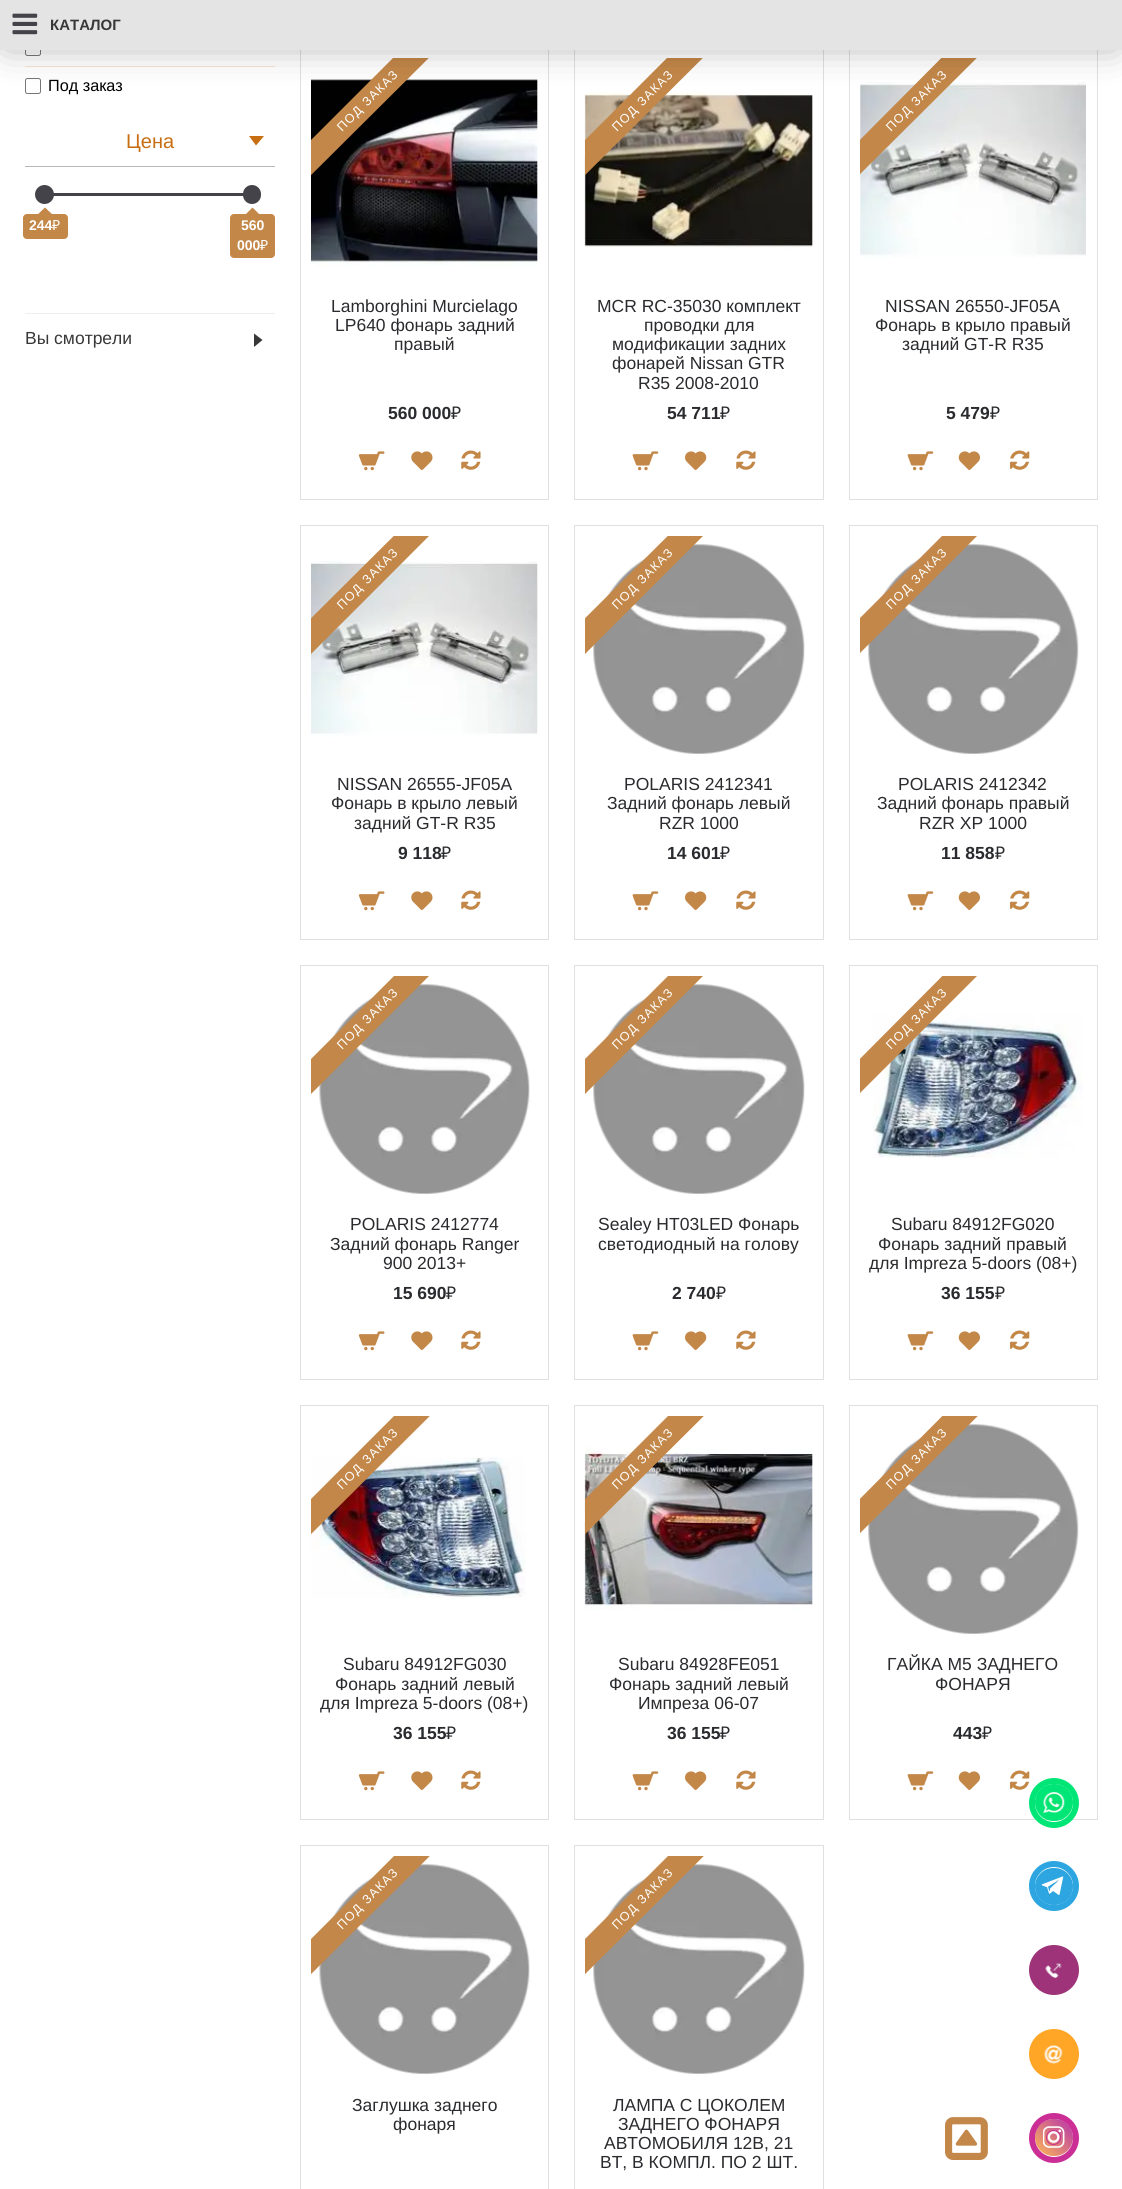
import math
import cairocffi as cairo

surface = cairo.ImageSurface(cairo.FORMAT_RGB24, 1122, 2189)
ctx = cairo.Context(surface)
options = cairo.FontOptions()
options.set_hint_metrics(cairo.HINT_METRICS_OFF)
options.set_hint_style(cairo.HINT_STYLE_NONE)
ctx.set_font_options(options)
ctx.set_miter_limit(4)


def rgb(r, g, b):
    ctx.set_source_rgb(r / 255, g / 255, b / 255)


def face(family, size, italic, bold):
    ctx.select_font_face(family, cairo.FONT_SLANT_ITALIC if italic else cairo.FONT_SLANT_NORMAL, cairo.FONT_WEIGHT_BOLD if bold else cairo.FONT_WEIGHT_NORMAL)
    ctx.set_font_size(size)


def label(x, y, s):
    ctx.move_to(x, y)
    ctx.show_text(s)


def tracked(x, y, s, letter, word):
    ctx.move_to(x, y)
    for ch in s:
        ctx.show_text(ch)
        ctx.rel_move_to(letter + word * (ch == ' '), 0)


def rect(x, y, w, h):
    ctx.rectangle(x, y, w, h)
    ctx.fill()


def rrect(x, y, w, h, r):
    ctx.new_sub_path()
    for i, (u, v) in enumerate([(x + w - r, y + h - r), (x + r, y + h - r), (x + r, y + r), (x + w - r, y + r)]):
        ctx.arc(u, v, r, i * math.pi / 2, (i + 1) * math.pi / 2)
    ctx.close_path()


def soft_shadow(x, y, w, h, r, blur, alpha):
    ctx.push_group_with_content(cairo.CONTENT_ALPHA)
    ctx.set_operator(cairo.OPERATOR_SOURCE)
    for i in range(15, -16, -2):
        e = blur * i / 6
        if min(w, h) + 2 * e > 0:
            ctx.set_source_rgba(0, 0, 0, alpha * math.erfc((i - 1) / 8.5) / 2)
            rrect(x - e, y - e, w + 2 * e, h + 2 * e, max(0, min(r + e + blur * .6, min(w, h) / 2 + e)))
            ctx.fill()
    ctx.mask(ctx.pop_group())


def image(path, x, y, w, h):
    ctx.save()
    ctx.set_source_surface(cairo.ImageSurface.create_from_png(path), x, y)
    ctx.rectangle(x, y, w, h)
    ctx.fill()
    ctx.restore()


rgb(255, 255, 255)
ctx.paint()
rgb(250, 232, 214)
rect(25, 66, 250, 1)
rrect(25.5, 40.5, 15, 15, 2)
rgb(118, 118, 118)
ctx.set_line_width(1)
ctx.stroke()
rrect(25.5, 78.5, 15, 15, 2)
ctx.stroke()
ctx.rectangle(300.5, 46.5, 248, 453)
rgb(224, 224, 224)
ctx.stroke()
image('image1.png', 311, 79, 227, 188)
ctx.save()
ctx.rectangle(311, 58, 227, 226)
ctx.clip()
rgb(195, 135, 73)
ctx.new_path()
ctx.move_to(271, 180)
ctx.line_to(448, 3)
ctx.line_to(466, 21)
ctx.line_to(289, 197)
ctx.close_path()
ctx.fill()
ctx.restore()
ctx.rectangle(574.5, 46.5, 249, 453)
ctx.stroke()
image('image5.png', 584, 92, 229, 157)
ctx.save()
ctx.rectangle(585, 58, 228, 226)
ctx.clip()
rgb(195, 135, 73)
ctx.new_path()
ctx.move_to(545, 180)
ctx.line_to(722, 3)
ctx.line_to(740, 21)
ctx.line_to(563, 197)
ctx.close_path()
ctx.fill()
ctx.restore()
ctx.rectangle(849.5, 46.5, 248, 453)
ctx.stroke()
image('image8.png', 860, 82, 226, 176)
ctx.save()
ctx.rectangle(860, 58, 226, 226)
ctx.clip()
rgb(195, 135, 73)
ctx.new_path()
ctx.move_to(820, 180)
ctx.line_to(996, 3)
ctx.line_to(1014, 21)
ctx.line_to(837, 197)
ctx.close_path()
ctx.fill()
ctx.restore()
rgb(0, 0, 0)
soft_shadow(6, 8, 1110, 37, 0, 19, 0.33)
rgb(228, 228, 228)
rect(0, 0, 1122, 50)
image('image0.png', 12, 13, 26, 22)
face('Liberation Sans', 15, 0, 1)
rgb(56, 56, 56)
label(50, 30, 'КАТАЛОГ')
face('Liberation Sans', 16.25, 0, 0)
rgb(0, 0, 0)
label(48, 91, 'Под заказ')
rgb(184, 184, 184)
rect(25, 166, 250, 1)
face('Liberation Sans', 20, 0, 0)
rgb(199, 110, 18)
label(126, 148, 'Цена')
ctx.new_path()
ctx.move_to(264, 136)
ctx.line_to(249, 136)
ctx.line_to(256, 145.5)
ctx.close_path()
ctx.fill()
rgb(68, 67, 73)
rect(46, 193, 198, 3)
ctx.arc(44.5, 194.5, 9.5, 0, 2 * math.pi)
ctx.fill()
rgb(195, 135, 72)
rrect(23, 214, 45, 25, 4)
ctx.fill()
ctx.new_path()
ctx.move_to(54, 216)
ctx.line_to(36, 216)
ctx.line_to(45, 207.5)
ctx.close_path()
ctx.fill()
face('Liberation Sans', 14, 0, 1)
rgb(255, 255, 255)
label(29, 230, '244')
face('Noto Sans', 14, 0, 0)
label(52, 230, '₽')
rgb(68, 67, 73)
rrect(243, 185, 18, 19, 9)
ctx.fill()
rgb(195, 135, 72)
rrect(230, 214, 45, 44, 4)
ctx.fill()
ctx.new_path()
ctx.move_to(261, 216)
ctx.line_to(244, 216)
ctx.line_to(252.5, 207.5)
ctx.close_path()
ctx.fill()
face('Liberation Sans', 14, 0, 1)
rgb(255, 255, 255)
label(241, 230, '560')
label(237, 250, '000')
face('Noto Sans', 14, 0, 0)
label(260, 250, '₽')
rgb(238, 238, 238)
rect(25, 313, 250, 1)
face('Liberation Sans', 17.5, 0, 0)
rgb(56, 56, 56)
label(25, 344, 'Вы смотрели')
ctx.new_path()
ctx.move_to(254, 333.5)
ctx.line_to(254, 347)
ctx.line_to(262.5, 340)
ctx.close_path()
ctx.fill()
face('Liberation Sans', 12.5, 0, 0)
rgb(255, 255, 255)
ctx.save()
ctx.translate(342, 132)
ctx.rotate(-45 * math.pi / 180)
tracked(0, 0, 'ПОД ЗАКАЗ', 1.25, 0)
ctx.restore()
face('Liberation Sans', 17.5, 0, 0)
rgb(42, 43, 46)
label(331, 312, 'Lamborghini Murcielago')
label(335, 331, 'LP640 фонарь задний')
label(394, 350, 'правый')
face('Liberation Sans', 17.5, 0, 1)
label(388, 419, '560 000')
face('Noto Sans', 17.5, 0, 0)
label(451, 419, '₽')
image('image2.png', 358, 451, 27, 20)
image('image3.png', 411, 451, 22, 19)
image('image4.png', 461, 450, 20, 20)
face('Liberation Sans', 12.5, 0, 0)
rgb(255, 255, 255)
ctx.save()
ctx.translate(617, 132)
ctx.rotate(-45 * math.pi / 180)
tracked(0, 0, 'ПОД ЗАКАЗ', 1.25, 0)
ctx.restore()
face('Liberation Sans', 17.5, 0, 0)
rgb(42, 43, 46)
label(597, 312, 'MCR RC-35030 комплект')
label(644, 331, 'проводки для')
label(612, 350, 'модификации задних')
label(612, 369, 'фонарей Nissan GTR')
label(638, 389, 'R35 2008-2010')
face('Liberation Sans', 17.5, 0, 1)
label(667, 419, '54 711')
face('Noto Sans', 17.5, 0, 0)
label(720, 419, '₽')
image('image6.png', 632, 451, 27, 20)
image('image7.png', 685, 451, 22, 19)
image('image4.png', 736, 450, 20, 20)
face('Liberation Sans', 12.5, 0, 0)
rgb(255, 255, 255)
ctx.save()
ctx.translate(891, 132)
ctx.rotate(-45 * math.pi / 180)
tracked(0, 0, 'ПОД ЗАКАЗ', 1.25, 0)
ctx.restore()
face('Liberation Sans', 17.5, 0, 0)
rgb(42, 43, 46)
label(885, 312, 'NISSAN 26550-JF05A')
label(875, 331, 'Фонарь в крыло правый')
label(902, 350, 'задний GT-R R35')
face('Liberation Sans', 17.5, 0, 1)
label(946, 419, '5 479')
face('Noto Sans', 17.5, 0, 0)
label(990, 419, '₽')
image('image6.png', 907, 451, 27, 20)
image('image9.png', 958, 451, 22, 19)
image('image10.png', 1010, 450, 20, 20)
ctx.rectangle(300.5, 525.5, 248, 414)
rgb(224, 224, 224)
ctx.stroke()
image('image11.png', 311, 561, 227, 176)
ctx.save()
ctx.rectangle(311, 536, 227, 227)
ctx.clip()
rgb(195, 135, 73)
ctx.new_path()
ctx.move_to(271, 658)
ctx.line_to(448, 482)
ctx.line_to(466, 499)
ctx.line_to(289, 676)
ctx.close_path()
ctx.fill()
ctx.restore()
face('Liberation Sans', 12.5, 0, 0)
rgb(255, 255, 255)
ctx.save()
ctx.translate(342, 610)
ctx.rotate(-45 * math.pi / 180)
tracked(0, 0, 'ПОД ЗАКАЗ', 1.25, 0)
ctx.restore()
face('Liberation Sans', 17.5, 0, 0)
rgb(42, 43, 46)
label(337, 790, 'NISSAN 26555-JF05A')
label(331, 809, 'Фонарь в крыло левый')
label(354, 829, 'задний GT-R R35')
face('Liberation Sans', 17.5, 0, 1)
label(398, 859, '9 118')
face('Noto Sans', 17.5, 0, 0)
label(441, 859, '₽')
image('image2.png', 358, 891, 27, 20)
image('image3.png', 411, 891, 22, 19)
image('image4.png', 461, 890, 20, 20)
ctx.rectangle(574.5, 525.5, 249, 414)
rgb(224, 224, 224)
ctx.stroke()
image('image12.png', 593, 544, 212, 210)
ctx.save()
ctx.rectangle(585, 536, 228, 227)
ctx.clip()
rgb(195, 135, 73)
ctx.new_path()
ctx.move_to(545, 658)
ctx.line_to(722, 482)
ctx.line_to(740, 499)
ctx.line_to(563, 676)
ctx.close_path()
ctx.fill()
ctx.restore()
face('Liberation Sans', 12.5, 0, 0)
rgb(255, 255, 255)
ctx.save()
ctx.translate(617, 610)
ctx.rotate(-45 * math.pi / 180)
tracked(0, 0, 'ПОД ЗАКАЗ', 1.25, 0)
ctx.restore()
face('Liberation Sans', 17.5, 0, 0)
rgb(42, 43, 46)
label(624, 790, 'POLARIS 2412341')
label(607, 809, 'Задний фонарь левый')
label(659, 829, 'RZR 1000')
face('Liberation Sans', 17.5, 0, 1)
label(667, 859, '14 601')
face('Noto Sans', 17.5, 0, 0)
label(720, 859, '₽')
image('image6.png', 632, 891, 27, 20)
image('image7.png', 685, 891, 22, 19)
image('image4.png', 736, 890, 20, 20)
ctx.rectangle(849.5, 525.5, 248, 414)
rgb(224, 224, 224)
ctx.stroke()
image('image13.png', 868, 544, 211, 210)
ctx.save()
ctx.rectangle(860, 536, 226, 227)
ctx.clip()
rgb(195, 135, 73)
ctx.new_path()
ctx.move_to(820, 658)
ctx.line_to(996, 482)
ctx.line_to(1014, 499)
ctx.line_to(837, 676)
ctx.close_path()
ctx.fill()
ctx.restore()
face('Liberation Sans', 12.5, 0, 0)
rgb(255, 255, 255)
ctx.save()
ctx.translate(891, 610)
ctx.rotate(-45 * math.pi / 180)
tracked(0, 0, 'ПОД ЗАКАЗ', 1.25, 0)
ctx.restore()
face('Liberation Sans', 17.5, 0, 0)
rgb(42, 43, 46)
label(898, 790, 'POLARIS 2412342')
label(877, 809, 'Задний фонарь правый')
label(919, 829, 'RZR XP 1000')
face('Liberation Sans', 17.5, 0, 1)
label(941, 859, '11 858')
face('Noto Sans', 17.5, 0, 0)
label(995, 859, '₽')
image('image6.png', 907, 891, 27, 20)
image('image9.png', 958, 891, 22, 19)
image('image10.png', 1010, 890, 20, 20)
ctx.rectangle(300.5, 965.5, 248, 414)
rgb(224, 224, 224)
ctx.stroke()
image('image14.png', 319, 984, 211, 210)
ctx.save()
ctx.rectangle(311, 976, 227, 227)
ctx.clip()
rgb(195, 135, 73)
ctx.new_path()
ctx.move_to(271, 1099)
ctx.line_to(448, 922)
ctx.line_to(466, 939)
ctx.line_to(289, 1116)
ctx.close_path()
ctx.fill()
ctx.restore()
face('Liberation Sans', 12.5, 0, 0)
rgb(255, 255, 255)
ctx.save()
ctx.translate(342, 1050)
ctx.rotate(-45 * math.pi / 180)
tracked(0, 0, 'ПОД ЗАКАЗ', 1.25, 0)
ctx.restore()
face('Liberation Sans', 17.5, 0, 0)
rgb(42, 43, 46)
label(350, 1230, 'POLARIS 2412774')
label(330, 1250, 'Задний фонарь Ranger')
label(383, 1269, '900 2013+')
face('Liberation Sans', 17.5, 0, 1)
label(393, 1299, '15 690')
face('Noto Sans', 17.5, 0, 0)
label(446, 1299, '₽')
image('image2.png', 358, 1331, 27, 20)
image('image3.png', 411, 1331, 22, 19)
image('image4.png', 461, 1330, 20, 20)
ctx.rectangle(574.5, 965.5, 249, 414)
rgb(224, 224, 224)
ctx.stroke()
image('image12.png', 593, 984, 212, 210)
ctx.save()
ctx.rectangle(585, 976, 228, 227)
ctx.clip()
rgb(195, 135, 73)
ctx.new_path()
ctx.move_to(545, 1099)
ctx.line_to(722, 922)
ctx.line_to(740, 939)
ctx.line_to(563, 1116)
ctx.close_path()
ctx.fill()
ctx.restore()
face('Liberation Sans', 12.5, 0, 0)
rgb(255, 255, 255)
ctx.save()
ctx.translate(617, 1050)
ctx.rotate(-45 * math.pi / 180)
tracked(0, 0, 'ПОД ЗАКАЗ', 1.25, 0)
ctx.restore()
face('Liberation Sans', 17.5, 0, 0)
rgb(42, 43, 46)
label(598, 1230, 'Sealey HT03LED Фонарь')
label(598, 1250, 'светодиодный на голову')
face('Liberation Sans', 17.5, 0, 1)
label(672, 1299, '2 740')
face('Noto Sans', 17.5, 0, 0)
label(716, 1299, '₽')
image('image6.png', 632, 1331, 27, 20)
image('image7.png', 685, 1331, 22, 19)
image('image4.png', 736, 1330, 20, 20)
ctx.rectangle(849.5, 965.5, 248, 414)
rgb(224, 224, 224)
ctx.stroke()
image('image15.png', 873, 1014, 210, 144)
ctx.save()
ctx.rectangle(860, 976, 226, 227)
ctx.clip()
rgb(195, 135, 73)
ctx.new_path()
ctx.move_to(820, 1099)
ctx.line_to(996, 922)
ctx.line_to(1014, 939)
ctx.line_to(837, 1116)
ctx.close_path()
ctx.fill()
ctx.restore()
face('Liberation Sans', 12.5, 0, 0)
rgb(255, 255, 255)
ctx.save()
ctx.translate(891, 1050)
ctx.rotate(-45 * math.pi / 180)
tracked(0, 0, 'ПОД ЗАКАЗ', 1.25, 0)
ctx.restore()
face('Liberation Sans', 17.5, 0, 0)
rgb(42, 43, 46)
label(891, 1230, 'Subaru 84912FG020')
label(878, 1250, 'Фонарь задний правый')
label(869, 1269, 'для Impreza 5-doors (08+)')
face('Liberation Sans', 17.5, 0, 1)
label(941, 1299, '36 155')
face('Noto Sans', 17.5, 0, 0)
label(995, 1299, '₽')
image('image6.png', 907, 1331, 27, 20)
image('image9.png', 958, 1331, 22, 19)
image('image10.png', 1010, 1330, 20, 20)
ctx.rectangle(300.5, 1405.5, 248, 414)
rgb(224, 224, 224)
ctx.stroke()
image('image16.png', 311, 1457, 215, 141)
ctx.save()
ctx.rectangle(311, 1416, 227, 227)
ctx.clip()
rgb(195, 135, 73)
ctx.new_path()
ctx.move_to(271, 1539)
ctx.line_to(448, 1362)
ctx.line_to(466, 1380)
ctx.line_to(289, 1556)
ctx.close_path()
ctx.fill()
ctx.restore()
face('Liberation Sans', 12.5, 0, 0)
rgb(255, 255, 255)
ctx.save()
ctx.translate(342, 1490)
ctx.rotate(-45 * math.pi / 180)
tracked(0, 0, 'ПОД ЗАКАЗ', 1.25, 0)
ctx.restore()
face('Liberation Sans', 17.5, 0, 0)
rgb(42, 43, 46)
label(343, 1670, 'Subaru 84912FG030')
label(335, 1690, 'Фонарь задний левый')
label(320, 1709, 'для Impreza 5-doors (08+)')
face('Liberation Sans', 17.5, 0, 1)
label(393, 1739, '36 155')
face('Noto Sans', 17.5, 0, 0)
label(446, 1739, '₽')
image('image2.png', 358, 1771, 27, 20)
image('image3.png', 411, 1771, 22, 19)
image('image4.png', 461, 1770, 20, 20)
ctx.rectangle(574.5, 1405.5, 249, 414)
rgb(224, 224, 224)
ctx.stroke()
image('image17.png', 584, 1447, 229, 163)
ctx.save()
ctx.rectangle(585, 1416, 228, 227)
ctx.clip()
rgb(195, 135, 73)
ctx.new_path()
ctx.move_to(545, 1539)
ctx.line_to(722, 1362)
ctx.line_to(740, 1380)
ctx.line_to(563, 1556)
ctx.close_path()
ctx.fill()
ctx.restore()
face('Liberation Sans', 12.5, 0, 0)
rgb(255, 255, 255)
ctx.save()
ctx.translate(617, 1490)
ctx.rotate(-45 * math.pi / 180)
tracked(0, 0, 'ПОД ЗАКАЗ', 1.25, 0)
ctx.restore()
face('Liberation Sans', 17.5, 0, 0)
rgb(42, 43, 46)
label(618, 1670, 'Subaru 84928FE051')
label(609, 1690, 'Фонарь задний левый')
label(638, 1709, 'Импреза 06-07')
face('Liberation Sans', 17.5, 0, 1)
label(667, 1739, '36 155')
face('Noto Sans', 17.5, 0, 0)
label(720, 1739, '₽')
image('image6.png', 632, 1771, 27, 20)
image('image7.png', 685, 1771, 22, 19)
image('image4.png', 736, 1770, 20, 20)
ctx.rectangle(849.5, 1405.5, 248, 414)
rgb(224, 224, 224)
ctx.stroke()
image('image13.png', 868, 1424, 211, 210)
ctx.save()
ctx.rectangle(860, 1416, 226, 227)
ctx.clip()
rgb(195, 135, 73)
ctx.new_path()
ctx.move_to(820, 1539)
ctx.line_to(996, 1362)
ctx.line_to(1014, 1380)
ctx.line_to(837, 1556)
ctx.close_path()
ctx.fill()
ctx.restore()
face('Liberation Sans', 12.5, 0, 0)
rgb(255, 255, 255)
ctx.save()
ctx.translate(891, 1490)
ctx.rotate(-45 * math.pi / 180)
tracked(0, 0, 'ПОД ЗАКАЗ', 1.25, 0)
ctx.restore()
face('Liberation Sans', 17.5, 0, 0)
rgb(42, 43, 46)
label(887, 1670, 'ГАЙКА М5 ЗАДНЕГО')
label(935, 1690, 'ФОНАРЯ')
face('Liberation Sans', 17.5, 0, 1)
label(953, 1739, '443')
face('Noto Sans', 17.5, 0, 0)
label(982, 1739, '₽')
image('image6.png', 907, 1771, 27, 20)
image('image9.png', 958, 1771, 22, 19)
image('image10.png', 1010, 1770, 20, 20)
ctx.rectangle(300.5, 1845.5, 248, 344)
rgb(224, 224, 224)
ctx.stroke()
image('image14.png', 319, 1864, 211, 210)
ctx.save()
ctx.rectangle(311, 1856, 227, 227)
ctx.clip()
rgb(195, 135, 73)
ctx.new_path()
ctx.move_to(271, 1979)
ctx.line_to(448, 1802)
ctx.line_to(466, 1820)
ctx.line_to(289, 1996)
ctx.close_path()
ctx.fill()
ctx.restore()
face('Liberation Sans', 12.5, 0, 0)
rgb(255, 255, 255)
ctx.save()
ctx.translate(342, 1930)
ctx.rotate(-45 * math.pi / 180)
tracked(0, 0, 'ПОД ЗАКАЗ', 1.25, 0)
ctx.restore()
face('Liberation Sans', 17.5, 0, 0)
rgb(42, 43, 46)
label(352, 2111, 'Заглушка заднего')
label(393, 2130, 'фонаря')
ctx.rectangle(574.5, 1845.5, 249, 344)
rgb(224, 224, 224)
ctx.stroke()
image('image12.png', 593, 1864, 212, 210)
ctx.save()
ctx.rectangle(585, 1856, 228, 227)
ctx.clip()
rgb(195, 135, 73)
ctx.new_path()
ctx.move_to(545, 1979)
ctx.line_to(722, 1802)
ctx.line_to(740, 1820)
ctx.line_to(563, 1996)
ctx.close_path()
ctx.fill()
ctx.restore()
face('Liberation Sans', 12.5, 0, 0)
rgb(255, 255, 255)
ctx.save()
ctx.translate(617, 1930)
ctx.rotate(-45 * math.pi / 180)
tracked(0, 0, 'ПОД ЗАКАЗ', 1.25, 0)
ctx.restore()
face('Liberation Sans', 17.5, 0, 0)
rgb(42, 43, 46)
label(613, 2111, 'ЛАМПА С ЦОКОЛЕМ')
label(618, 2130, 'ЗАДНЕГО ФОНАРЯ')
label(604, 2149, 'АВТОМОБИЛЯ 12В, 21')
label(600, 2168, 'ВТ, В КОМПЛ. ПО 2 ШТ.')
image('image18.png', 945, 2117, 43, 43)
rgb(0, 230, 118)
rrect(1035, 1784, 38, 37, 18.5)
ctx.fill()
ctx.arc(1054, 1803, 22, 0, 2 * math.pi)
ctx.set_line_width(6)
ctx.stroke()
image('image19.png', 1043, 1792, 22, 21)
rgb(44, 165, 224)
rrect(1035, 1868, 38, 37, 18.5)
ctx.fill()
ctx.arc(1054, 1886, 22, 0, 2 * math.pi)
ctx.stroke()
image('image20.png', 1041, 1876, 23, 19)
rgb(158, 51, 122)
ctx.arc(1054, 1970, 22, 0, 2 * math.pi)
ctx.fill_preserve()
ctx.stroke()
image('image21.png', 1045, 1963, 17, 15)
rgb(255, 166, 39)
ctx.arc(1054, 2054, 22, 0, 2 * math.pi)
ctx.fill_preserve()
ctx.stroke()
image('image22.png', 1043, 2045, 20, 19)
gradient = cairo.LinearGradient(1073, 2119, 1035, 2156)
gradient.add_color_stop_rgba(0, 0.714, 0.2, 0.671, 1)
gradient.add_color_stop_rgba(1, 0.992, 0.725, 0.337, 1)
ctx.set_source(gradient)
rrect(1035, 2119, 38, 37, 18.5)
ctx.fill()
ctx.arc(1053.5, 2137.5, 7, 0, 2 * math.pi)
rgb(203, 47, 150)
ctx.set_line_width(1)
ctx.stroke()
ctx.arc(1054, 2138, 22, 0, 2 * math.pi)
ctx.set_line_width(6)
ctx.stroke()
image('image23.png', 1043, 2126, 22, 22)
surface.write_to_png('render.png')
